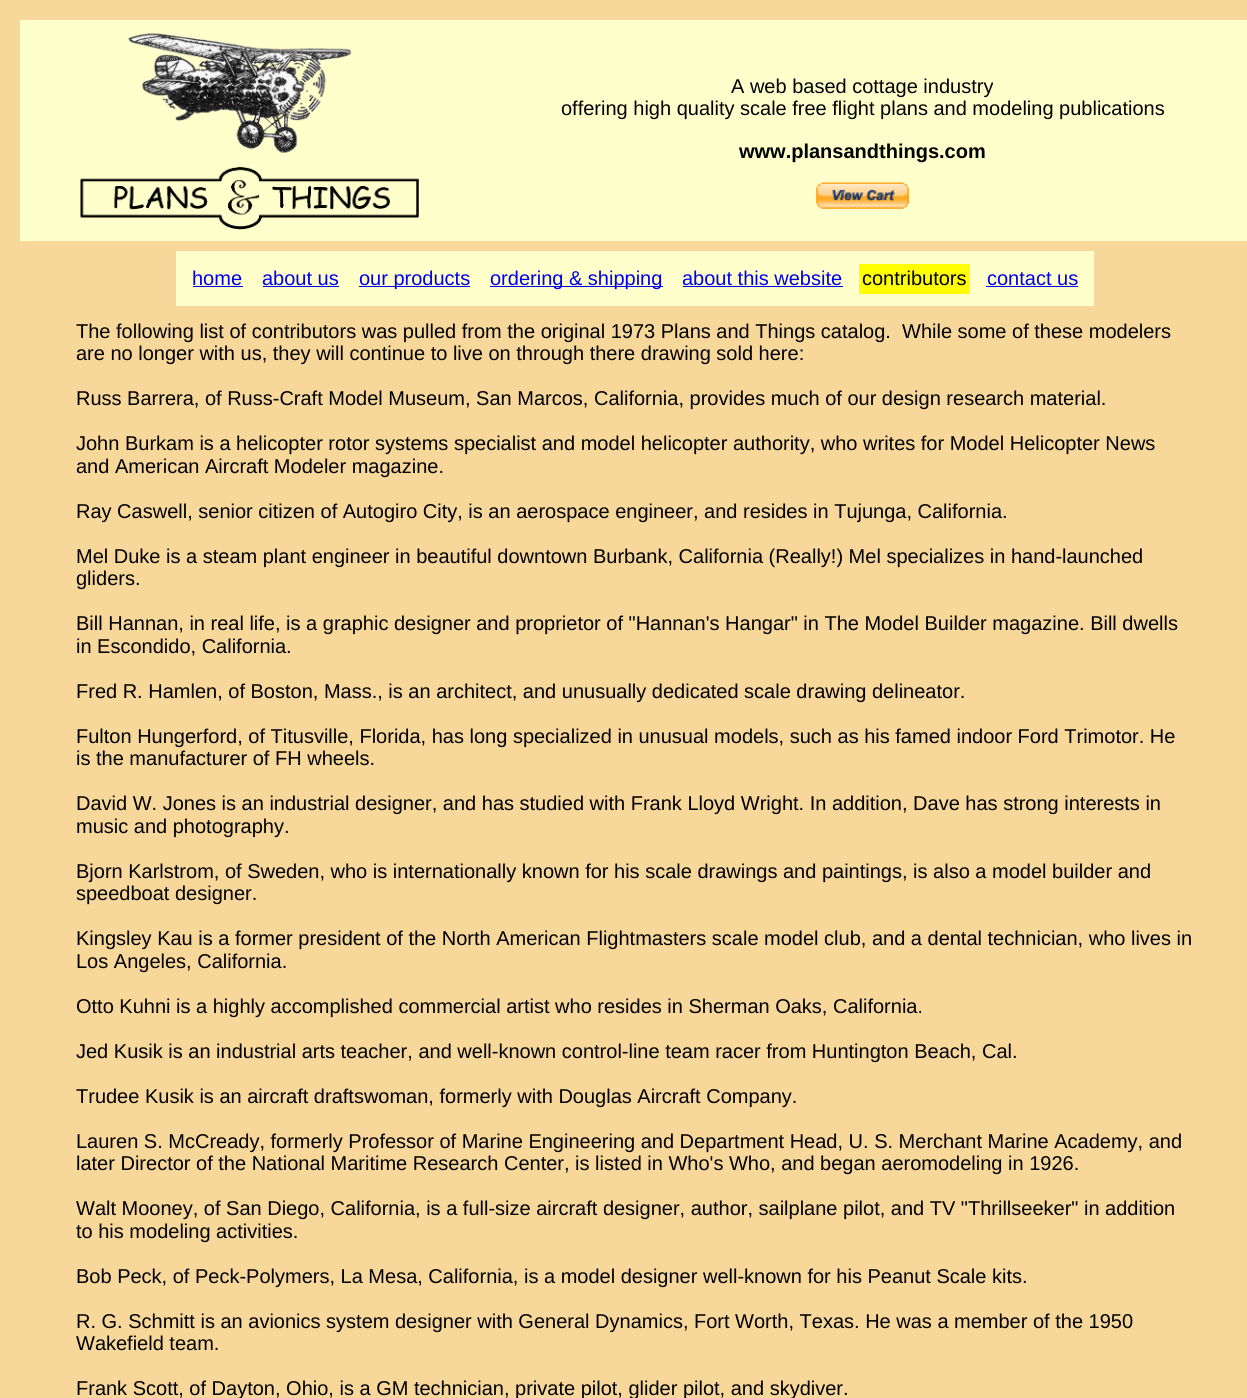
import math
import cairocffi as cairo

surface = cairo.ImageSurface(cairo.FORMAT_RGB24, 1247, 1398)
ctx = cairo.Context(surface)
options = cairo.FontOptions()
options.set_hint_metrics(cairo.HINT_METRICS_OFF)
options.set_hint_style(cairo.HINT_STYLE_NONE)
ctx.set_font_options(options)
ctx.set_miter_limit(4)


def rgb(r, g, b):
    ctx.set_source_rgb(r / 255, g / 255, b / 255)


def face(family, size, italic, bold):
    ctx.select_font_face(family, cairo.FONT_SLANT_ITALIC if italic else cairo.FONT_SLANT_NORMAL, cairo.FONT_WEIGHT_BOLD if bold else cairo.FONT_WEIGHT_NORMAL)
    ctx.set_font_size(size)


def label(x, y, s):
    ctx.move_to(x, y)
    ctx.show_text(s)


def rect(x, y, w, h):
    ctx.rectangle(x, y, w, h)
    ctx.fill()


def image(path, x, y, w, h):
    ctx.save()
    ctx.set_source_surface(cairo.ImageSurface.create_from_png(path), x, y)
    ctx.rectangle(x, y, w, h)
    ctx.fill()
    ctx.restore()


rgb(247, 215, 154)
ctx.paint()
rgb(255, 255, 204)
rect(20, 20, 1227, 221)
image('image0.png', 80, 26, 339, 204)
face('Liberation Sans', 20, 0, 0)
rgb(0, 0, 0)
label(731, 93, 'A web based cottage industry')
label(561, 115, 'offering high quality scale free flight plans and modeling publications')
face('Liberation Sans', 20, 0, 1)
label(739, 158, 'www.plansandthings.com')
image('image1.png', 816, 182, 93, 27)
rgb(255, 255, 204)
rect(176, 251, 918, 55)
face('Liberation Sans', 20, 0, 0)
rgb(0, 0, 238)
label(192, 285, 'home')
rect(193, 286, 50, 1)
label(262, 285, 'about us')
rect(263, 286, 76, 1)
rect(359, 286, 111, 1)
label(359, 285, 'our products')
rect(490, 286, 173, 1)
label(490, 285, 'ordering & shipping')
label(682, 285, 'about this website')
rect(683, 286, 160, 1)
rgb(255, 255, 0)
rect(859, 264, 111, 30)
rgb(0, 0, 0)
label(862, 285, 'contributors')
rgb(0, 0, 238)
label(987, 285, 'contact us')
rect(986, 286, 92, 1)
rgb(0, 0, 0)
label(76, 338, 'The following list of contributors was pulled from the original 1973 Plans and Things catalog.  While some of these modelers')
label(76, 360, 'are no longer with us, they will continue to live on through there drawing sold here:')
label(76, 405, 'Russ Barrera, of Russ-Craft Model Museum, San Marcos, California, provides much of our design research material.')
label(76, 450, 'John Burkam is a helicopter rotor systems specialist and model helicopter authority, who writes for Model Helicopter News')
label(76, 473, 'and American Aircraft Modeler magazine.')
label(76, 518, 'Ray Caswell, senior citizen of Autogiro City, is an aerospace engineer, and resides in Tujunga, California.')
label(76, 563, 'Mel Duke is a steam plant engineer in beautiful downtown Burbank, California (Really!) Mel specializes in hand-launched')
label(76, 585, 'gliders.')
label(76, 630, 'Bill Hannan, in real life, is a graphic designer and proprietor of "Hannan\'s Hangar" in The Model Builder magazine. Bill dwells')
label(76, 653, 'in Escondido, California.')
label(76, 698, 'Fred R. Hamlen, of Boston, Mass., is an architect, and unusually dedicated scale drawing delineator.')
label(76, 743, 'Fulton Hungerford, of Titusville, Florida, has long specialized in unusual models, such as his famed indoor Ford Trimotor. He')
label(76, 765, 'is the manufacturer of FH wheels.')
label(76, 810, 'David W. Jones is an industrial designer, and has studied with Frank Lloyd Wright. In addition, Dave has strong interests in')
label(76, 833, 'music and photography.')
label(76, 878, 'Bjorn Karlstrom, of Sweden, who is internationally known for his scale drawings and paintings, is also a model builder and')
label(76, 900, 'speedboat designer.')
label(76, 945, 'Kingsley Kau is a former president of the North American Flightmasters scale model club, and a dental technician, who lives in')
label(76, 968, 'Los Angeles, California.')
label(76, 1013, 'Otto Kuhni is a highly accomplished commercial artist who resides in Sherman Oaks, California.')
label(76, 1058, 'Jed Kusik is an industrial arts teacher, and well-known control-line team racer from Huntington Beach, Cal.')
label(76, 1103, 'Trudee Kusik is an aircraft draftswoman, formerly with Douglas Aircraft Company.')
label(76, 1148, 'Lauren S. McCready, formerly Professor of Marine Engineering and Department Head, U. S. Merchant Marine Academy, and')
label(76, 1170, 'later Director of the National Maritime Research Center, is listed in Who\'s Who, and began aeromodeling in 1926.')
label(76, 1215, 'Walt Mooney, of San Diego, California, is a full-size aircraft designer, author, sailplane pilot, and TV "Thrillseeker" in addition')
label(76, 1238, 'to his modeling activities.')
label(76, 1283, 'Bob Peck, of Peck-Polymers, La Mesa, California, is a model designer well-known for his Peanut Scale kits.')
label(76, 1328, 'R. G. Schmitt is an avionics system designer with General Dynamics, Fort Worth, Texas. He was a member of the 1950')
label(76, 1350, 'Wakefield team.')
label(76, 1395, 'Frank Scott, of Dayton, Ohio, is a GM technician, private pilot, glider pilot, and skydiver.')
surface.write_to_png('render.png')
